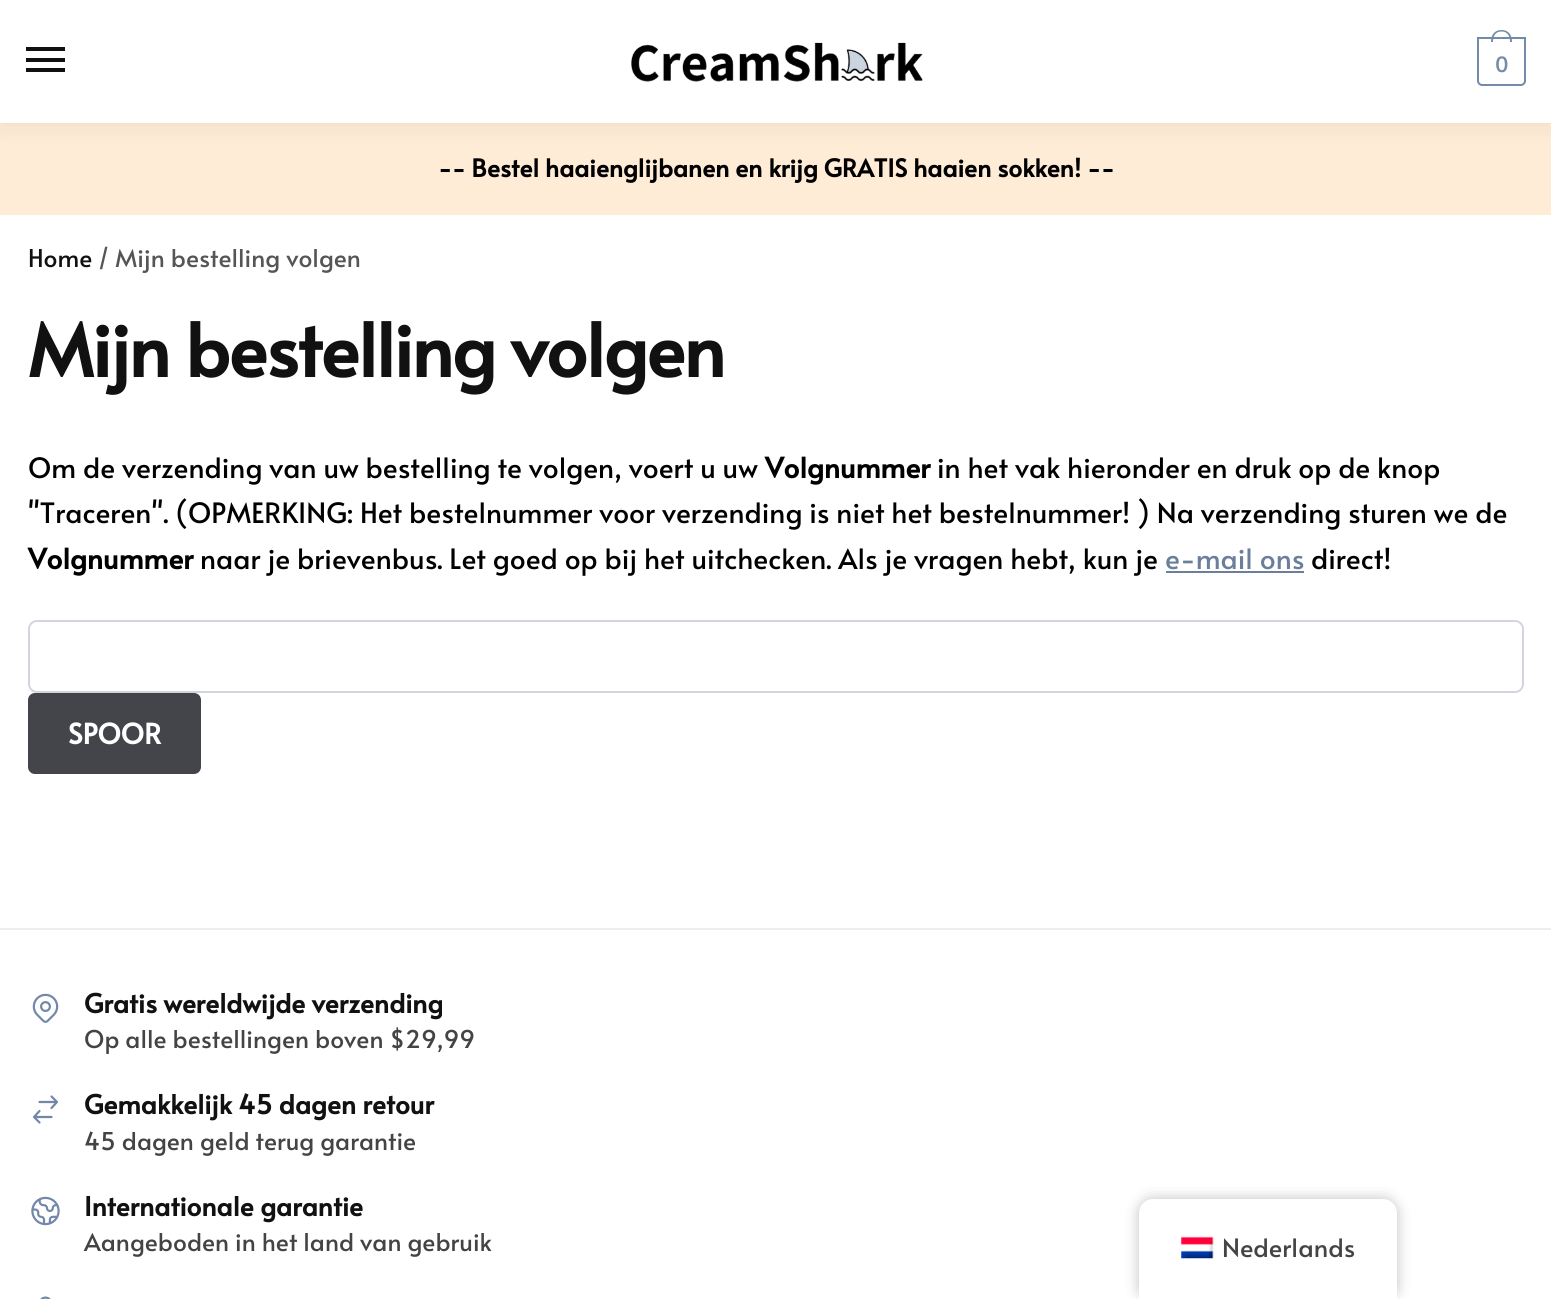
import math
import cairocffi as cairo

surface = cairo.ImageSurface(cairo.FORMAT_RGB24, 1551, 1299)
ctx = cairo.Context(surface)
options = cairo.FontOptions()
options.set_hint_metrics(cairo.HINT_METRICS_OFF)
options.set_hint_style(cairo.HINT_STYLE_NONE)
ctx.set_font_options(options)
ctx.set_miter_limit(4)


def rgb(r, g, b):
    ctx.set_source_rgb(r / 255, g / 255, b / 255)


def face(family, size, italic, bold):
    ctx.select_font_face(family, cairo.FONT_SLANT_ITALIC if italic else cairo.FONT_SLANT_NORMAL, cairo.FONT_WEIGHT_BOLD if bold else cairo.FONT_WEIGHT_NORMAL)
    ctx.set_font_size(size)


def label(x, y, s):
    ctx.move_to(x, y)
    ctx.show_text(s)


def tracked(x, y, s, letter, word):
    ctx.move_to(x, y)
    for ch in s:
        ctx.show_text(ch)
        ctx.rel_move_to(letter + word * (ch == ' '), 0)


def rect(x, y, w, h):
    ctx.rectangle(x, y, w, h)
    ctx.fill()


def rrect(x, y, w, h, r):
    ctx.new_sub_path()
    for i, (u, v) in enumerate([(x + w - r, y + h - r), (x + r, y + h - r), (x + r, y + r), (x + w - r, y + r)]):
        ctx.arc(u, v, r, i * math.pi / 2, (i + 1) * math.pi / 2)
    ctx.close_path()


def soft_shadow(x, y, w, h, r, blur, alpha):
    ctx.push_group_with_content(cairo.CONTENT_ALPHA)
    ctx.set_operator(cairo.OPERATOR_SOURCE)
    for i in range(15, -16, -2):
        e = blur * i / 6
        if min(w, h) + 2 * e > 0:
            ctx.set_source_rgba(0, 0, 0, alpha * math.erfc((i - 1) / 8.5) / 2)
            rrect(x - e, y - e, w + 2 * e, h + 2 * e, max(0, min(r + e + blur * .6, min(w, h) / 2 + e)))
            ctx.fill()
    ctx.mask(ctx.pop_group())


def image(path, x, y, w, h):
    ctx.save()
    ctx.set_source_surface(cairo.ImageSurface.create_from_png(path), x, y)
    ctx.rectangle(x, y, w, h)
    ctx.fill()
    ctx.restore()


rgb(255, 255, 255)
ctx.paint()
rgb(255, 236, 214)
rect(0, 123, 1551, 92)
rgb(0, 0, 0)
soft_shadow(0, 2, 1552, 122, 0, 13, 0.08)
rgb(255, 255, 255)
rect(0, 0, 1551, 123)
rgb(17, 17, 17)
rect(26, 47, 39, 4)
rect(26, 58, 39, 4)
rect(26, 68, 39, 4)
image('image0.png', 631, 42, 292, 40)
ctx.new_path()
ctx.move_to(1478, 38)
ctx.line_to(1525, 38)
ctx.line_to(1525, 81)
ctx.curve_to(1525, 83, 1523, 85, 1521, 85)
ctx.line_to(1482, 85)
ctx.curve_to(1480, 85, 1478, 83, 1478, 81)
ctx.close_path()
rgb(116, 139, 167)
ctx.stroke()
ctx.set_fill_rule(cairo.FILL_RULE_EVEN_ODD)
ctx.new_path()
ctx.move_to(1501.5, 30)
ctx.curve_to(1509, 30, 1512, 35.5, 1512, 42)
ctx.line_to(1491, 42)
ctx.curve_to(1491, 35.5, 1494, 30, 1501.5, 30)
ctx.close_path()
ctx.move_to(1501.5, 31.5)
ctx.curve_to(1508, 31.5, 1510, 36.5, 1510, 42)
ctx.line_to(1493, 42)
ctx.curve_to(1493, 36.5, 1495, 31.5, 1501.5, 31.5)
ctx.close_path()
ctx.fill()
face('Alata', 21, 0, 0)
tracked(1495, 72, '0', -1, 0)
face('Alata', 24.5, 0, 1)
rgb(0, 0, 0)
label(438, 177, '-- Bestel haaienglijbanen en krijg GRATIS haaien sokken! --')
face('Alata', 24.5, 0, 0)
rgb(17, 17, 17)
label(28, 267, 'Home')
rgb(85, 85, 85)
label(98, 267, '/ Mijn bestelling volgen')
face('Alata', 73.25, 0, 1)
rgb(17, 17, 17)
tracked(28, 377, 'Mijn bestelling volgen', -1.75, 0)
face('Alata', 28, 0, 0)
rgb(0, 0, 0)
label(28, 478, 'Om de verzending van uw bestelling te volgen, voert u uw')
face('Alata', 28, 0, 1)
label(765, 478, 'Volgnummer')
face('Alata', 28, 0, 0)
label(937, 478, 'in het vak hieronder en druk op de knop')
label(28, 523, '"Traceren". (OPMERKING: Het bestelnummer voor verzending is niet het bestelnummer! ) Na verzending sturen we de')
face('Alata', 28, 0, 1)
label(28, 569, 'Volgnummer')
face('Alata', 28, 0, 0)
label(200, 569, 'naar je brievenbus. Let goed op bij het uitchecken. Als je vragen hebt, kun je')
rgb(107, 126, 155)
label(1165, 569, 'e-mail ons')
rect(1166, 571, 138, 2)
rgb(0, 0, 0)
label(1311, 569, 'direct!')
rrect(29, 621, 1494, 71, 8)
rgb(210, 214, 220)
ctx.stroke()
rgb(67, 69, 75)
rrect(28, 693, 173, 81, 7)
ctx.fill()
face('Alata', 28, 0, 1)
rgb(255, 255, 255)
label(68, 744, 'SPOOR')
rgb(238, 238, 238)
rect(0, 928, 1551, 2)
face('Alata', 26.25, 0, 1)
rgb(17, 17, 17)
label(84, 1013, 'Gratis wereldwijde verzending')
image('image1.png', 32, 993, 27, 30)
face('Alata', 24.5, 0, 0)
rgb(68, 68, 68)
label(84, 1048, 'Op alle bestellingen boven $29,99')
face('Alata', 26.25, 0, 1)
rgb(17, 17, 17)
label(84, 1114, 'Gemakkelijk 45 dagen retour')
ctx.new_path()
ctx.move_to(39.5, 1102)
ctx.line_to(57, 1102)
ctx.move_to(57, 1102)
ctx.line_to(51.5, 1096.5)
ctx.move_to(57, 1102)
ctx.line_to(51.5, 1108)
ctx.move_to(51.5, 1117)
ctx.line_to(34, 1117)
ctx.move_to(34, 1117)
ctx.line_to(39.5, 1122.5)
ctx.move_to(34, 1117)
ctx.line_to(39.5, 1111)
rgb(114, 135, 169)
ctx.set_line_width(2.2)
ctx.set_line_cap(cairo.LINE_CAP_ROUND)
ctx.set_line_join(cairo.LINE_JOIN_ROUND)
ctx.stroke()
face('Alata', 24.5, 0, 0)
rgb(68, 68, 68)
label(84, 1150, '45 dagen geld terug garantie')
face('Alata', 26.25, 0, 1)
rgb(17, 17, 17)
label(84, 1216, 'Internationale garantie')
image('image2.png', 31, 1196, 29, 30)
face('Alata', 24.5, 0, 0)
rgb(68, 68, 68)
label(84, 1251, 'Aangeboden in het land van gebruik')
image('image3.png', 40, 1296, 11, 3)
rgb(0, 0, 0)
soft_shadow(1139, 1199, 258, 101, 14, 7, 0.25)
rgb(255, 255, 255)
ctx.new_path()
ctx.move_to(1153, 1199)
ctx.line_to(1383, 1199)
ctx.curve_to(1390.5, 1199, 1397, 1205.5, 1397, 1213)
ctx.line_to(1397, 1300)
ctx.line_to(1139, 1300)
ctx.line_to(1139, 1213)
ctx.curve_to(1139, 1205.5, 1145.5, 1199, 1153, 1199)
ctx.close_path()
ctx.fill()
image('image4.png', 1181, 1236, 33, 23)
face('Alata', 25.25, 0, 0)
rgb(68, 68, 68)
label(1222, 1257, 'Nederlands')
surface.write_to_png('render.png')
